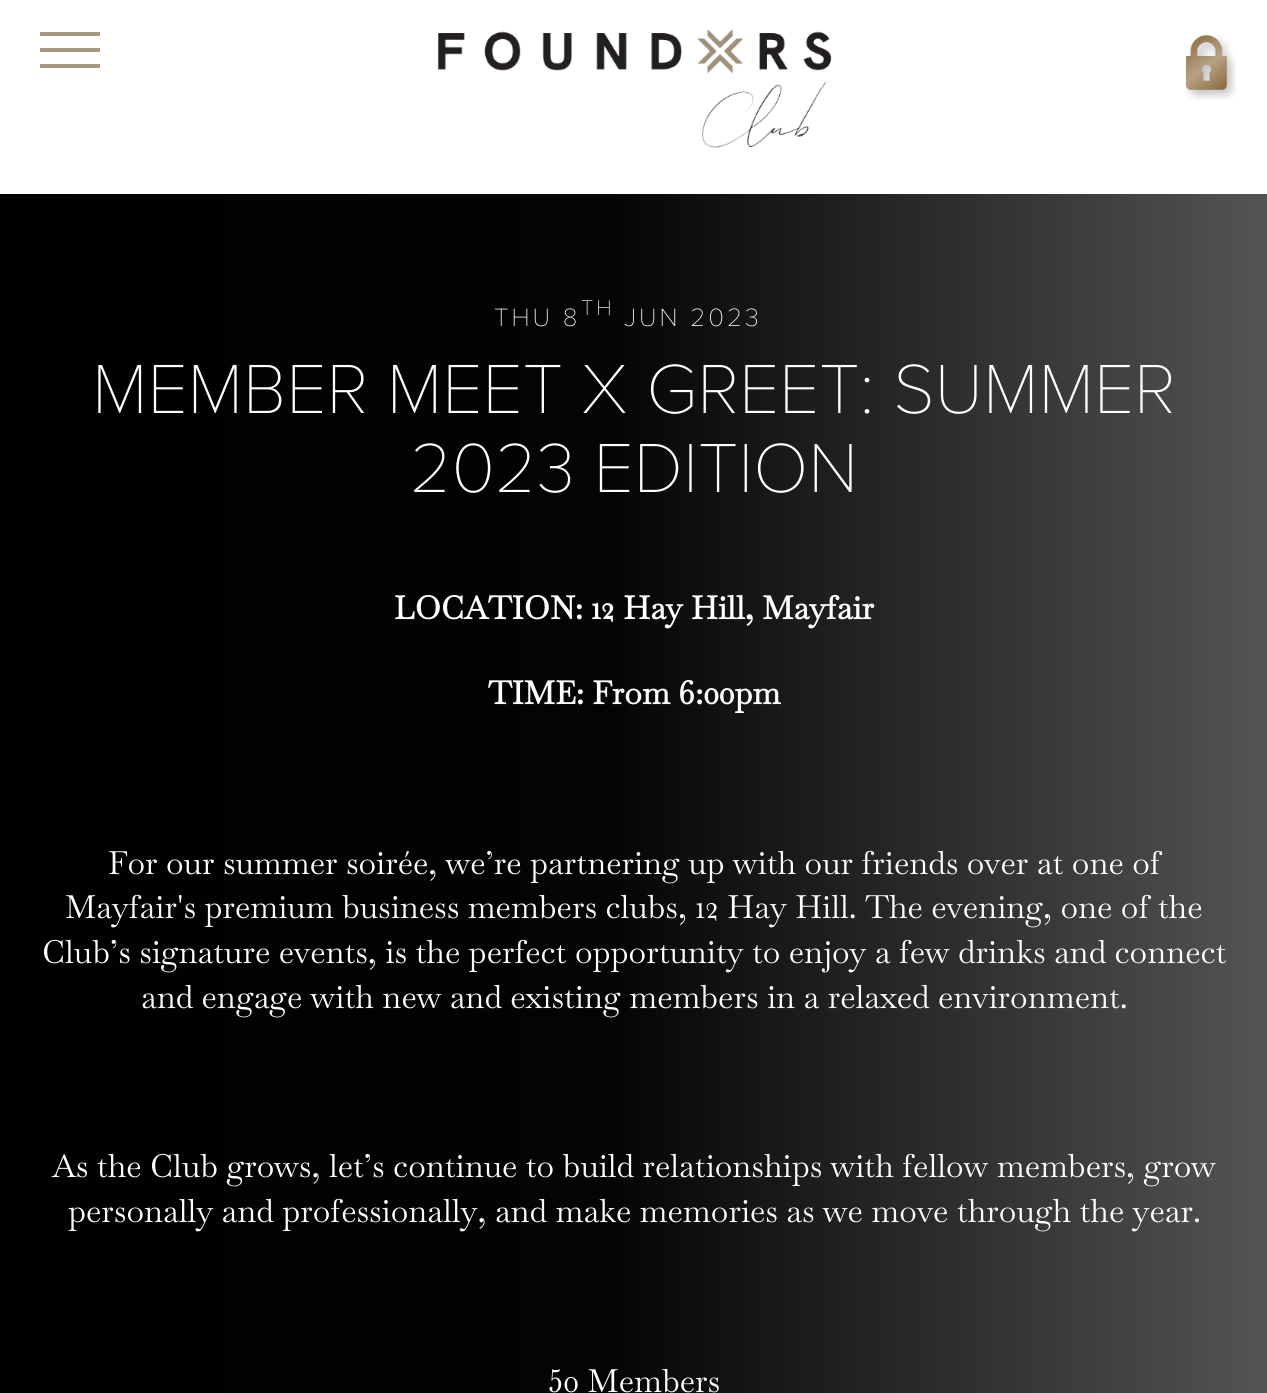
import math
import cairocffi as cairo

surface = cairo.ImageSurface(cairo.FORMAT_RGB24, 1267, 1393)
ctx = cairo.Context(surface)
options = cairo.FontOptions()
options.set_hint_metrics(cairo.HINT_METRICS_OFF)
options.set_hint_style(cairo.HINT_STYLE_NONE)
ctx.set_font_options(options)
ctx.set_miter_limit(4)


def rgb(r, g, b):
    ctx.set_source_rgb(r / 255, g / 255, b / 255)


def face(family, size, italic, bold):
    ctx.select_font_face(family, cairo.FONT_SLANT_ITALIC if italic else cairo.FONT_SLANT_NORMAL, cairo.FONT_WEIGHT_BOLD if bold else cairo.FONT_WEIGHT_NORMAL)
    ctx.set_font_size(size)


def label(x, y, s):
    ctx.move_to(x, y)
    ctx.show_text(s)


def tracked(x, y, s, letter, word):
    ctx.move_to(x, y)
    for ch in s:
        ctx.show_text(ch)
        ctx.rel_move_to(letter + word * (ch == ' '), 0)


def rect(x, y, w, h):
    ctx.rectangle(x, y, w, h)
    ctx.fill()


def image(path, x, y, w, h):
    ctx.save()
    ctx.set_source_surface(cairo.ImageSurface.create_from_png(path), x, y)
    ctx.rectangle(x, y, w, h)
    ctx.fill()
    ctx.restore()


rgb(255, 255, 255)
ctx.paint()
rgb(170, 152, 126)
rect(40, 32, 60, 4)
rect(40, 48, 60, 4)
rect(40, 64, 60, 4)
image('image0.png', 437, 30, 395, 118)
image('image1.png', 1185, 35, 51, 65)
gradient = cairo.LinearGradient(0, 924, 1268, 924)
gradient.add_color_stop_rgba(0, 0, 0, 0, 1)
gradient.add_color_stop_rgba(0.48, 0.016, 0.016, 0.016, 1)
gradient.add_color_stop_rgba(1, 0.329, 0.329, 0.329, 1)
ctx.set_source(gradient)
rect(0, 194, 1267, 1199)
face('Proxima Nova Thin', 26, 0, 0)
rgb(255, 255, 255)
tracked(494, 326, 'THU 8', 3, 0)
face('Proxima Nova Thin', 22, 0, 0)
tracked(581, 315, 'TH', 3, 0)
face('Proxima Nova Thin', 26, 0, 0)
tracked(624, 326, 'JUN 2023', 3, 0)
face('Proxima Nova Thin', 72, 0, 0)
label(92, 413, 'MEMBER MEET X GREET: SUMMER')
label(410, 492, '2023 EDITION')
face('Baskervville', 32, 0, 1)
label(394, 619, 'LOCATION: 12 Hay Hill, Mayfair')
label(488, 704, 'TIME: From 6:00pm')
face('Baskervville', 32, 0, 0)
label(108, 874, 'For our summer soirée, we’re partnering up with our friends over at one of')
label(65, 918, 'Mayfair\'s premium business members clubs, 12 Hay Hill. The evening, one of the')
label(42, 963, 'Club’s signature events, is the perfect opportunity to enjoy a few drinks and connect')
label(141, 1008, 'and engage with new and existing members in a relaxed environment.')
label(52, 1177, 'As the Club grows, let’s continue to build relationships with fellow members, grow')
label(68, 1222, 'personally and professionally, and make memories as we move through the year.')
label(548, 1392, '50 Members')
surface.write_to_png('render.png')
